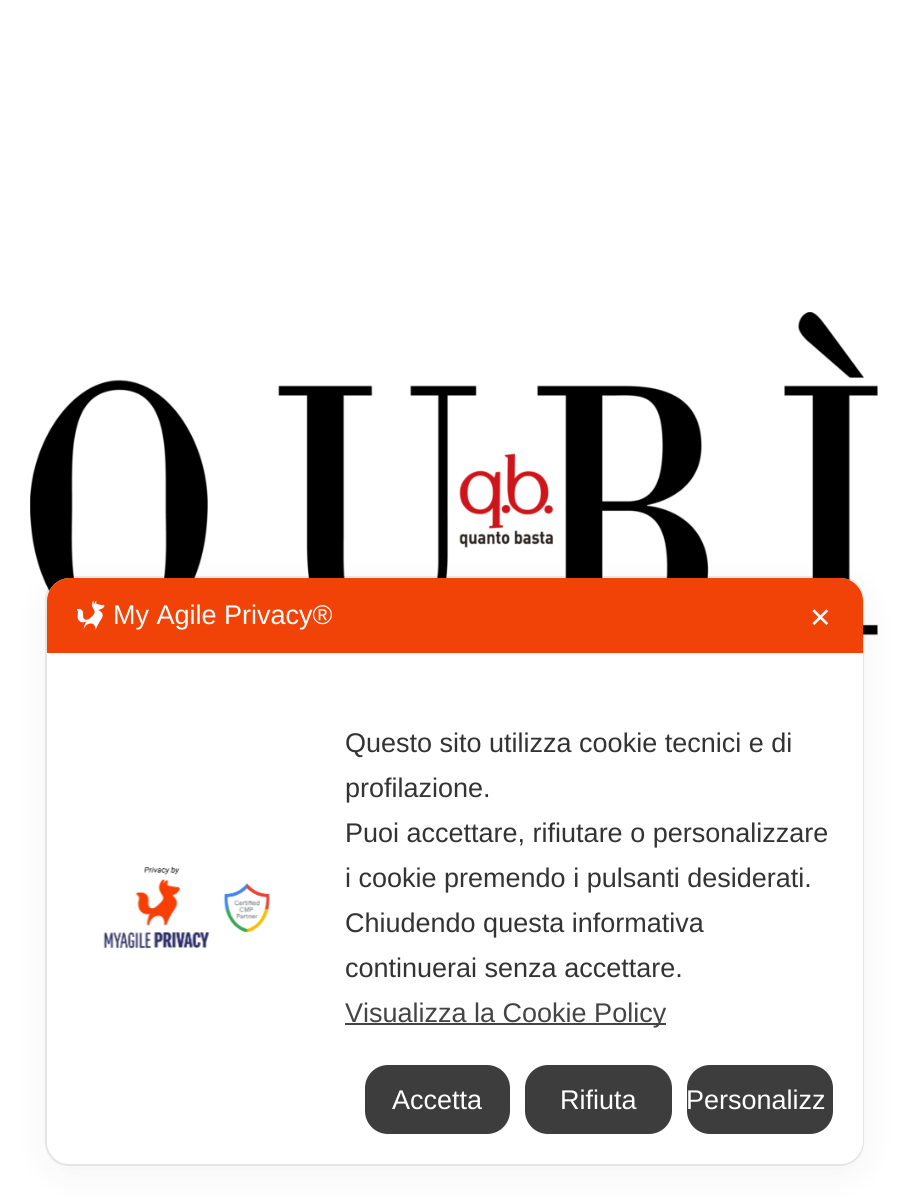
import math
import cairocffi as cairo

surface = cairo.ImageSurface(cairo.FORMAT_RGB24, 907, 1200)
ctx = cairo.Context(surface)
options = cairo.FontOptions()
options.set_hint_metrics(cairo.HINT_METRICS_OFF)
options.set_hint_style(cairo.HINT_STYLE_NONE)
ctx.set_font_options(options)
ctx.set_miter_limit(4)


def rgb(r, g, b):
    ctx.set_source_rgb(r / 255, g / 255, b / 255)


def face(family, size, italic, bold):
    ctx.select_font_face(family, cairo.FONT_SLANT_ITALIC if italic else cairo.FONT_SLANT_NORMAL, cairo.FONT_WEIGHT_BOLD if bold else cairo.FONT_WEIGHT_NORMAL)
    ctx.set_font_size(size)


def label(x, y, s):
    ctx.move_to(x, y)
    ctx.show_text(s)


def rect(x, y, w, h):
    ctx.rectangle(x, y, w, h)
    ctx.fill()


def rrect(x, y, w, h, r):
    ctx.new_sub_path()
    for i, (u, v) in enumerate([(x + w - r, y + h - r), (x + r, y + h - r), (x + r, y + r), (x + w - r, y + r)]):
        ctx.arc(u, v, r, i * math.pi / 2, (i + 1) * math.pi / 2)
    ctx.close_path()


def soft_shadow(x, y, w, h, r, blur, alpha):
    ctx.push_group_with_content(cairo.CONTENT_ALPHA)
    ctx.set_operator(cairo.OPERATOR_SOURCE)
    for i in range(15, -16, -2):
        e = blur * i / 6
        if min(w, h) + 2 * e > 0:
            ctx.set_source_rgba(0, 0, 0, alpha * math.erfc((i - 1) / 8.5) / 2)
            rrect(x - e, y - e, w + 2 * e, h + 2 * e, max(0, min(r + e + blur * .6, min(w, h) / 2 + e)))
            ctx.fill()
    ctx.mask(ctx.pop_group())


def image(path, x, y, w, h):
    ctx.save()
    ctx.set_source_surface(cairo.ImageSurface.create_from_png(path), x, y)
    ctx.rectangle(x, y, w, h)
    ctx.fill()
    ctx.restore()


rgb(255, 255, 255)
ctx.paint()
image('image0.png', 30, 312, 848, 324)
rrect(46, 577, 817, 588, 23)
ctx.set_source_rgba(0, 0, 0, 0.08)
ctx.stroke()
rgb(0, 0, 0)
soft_shadow(47, 587, 816, 586, 23, 18, 0.05)
rgb(255, 255, 255)
rrect(47, 578, 816, 586, 23)
ctx.fill()
rgb(241, 67, 7)
ctx.new_path()
ctx.move_to(70, 578)
ctx.line_to(840, 578)
ctx.curve_to(852.5, 578, 863, 588.5, 863, 601)
ctx.line_to(863, 653)
ctx.line_to(47, 653)
ctx.line_to(47, 601)
ctx.curve_to(47, 588.5, 57.5, 578, 70, 578)
ctx.close_path()
ctx.fill()
image('image1.png', 77, 600, 28, 30)
face('Liberation Sans', 27, 0, 0)
rgb(255, 255, 255)
label(113, 624, 'My Agile Privacy®')
face('DejaVu Sans', 27, 0, 0)
label(809, 627, '✕')
image('image2.png', 103, 866, 167, 83)
face('Liberation Sans', 27, 0, 0)
rgb(51, 51, 51)
label(345, 752, 'Questo sito utilizza cookie tecnici e di')
label(345, 797, 'profilazione.')
label(345, 842, 'Puoi accettare, rifiutare o personalizzare')
label(345, 887, 'i cookie premendo i pulsanti desiderati.')
label(345, 932, 'Chiudendo questa informativa')
label(345, 977, 'continuerai senza accettare.')
rgb(68, 68, 68)
rect(345, 1023, 321, 2)
label(345, 1022, 'Visualizza la Cookie Policy')
rgb(61, 61, 61)
rrect(365, 1065, 145, 69, 23)
ctx.fill()
rgb(255, 255, 255)
label(392, 1109, 'Accetta')
rgb(61, 61, 61)
rrect(525, 1065, 147, 69, 23)
ctx.fill()
rgb(255, 255, 255)
label(560, 1109, 'Rifiuta')
rgb(61, 61, 61)
rrect(687, 1065, 146, 69, 23)
ctx.fill()
rgb(255, 255, 255)
label(686, 1109, 'Personalizz')
surface.write_to_png('render.png')
